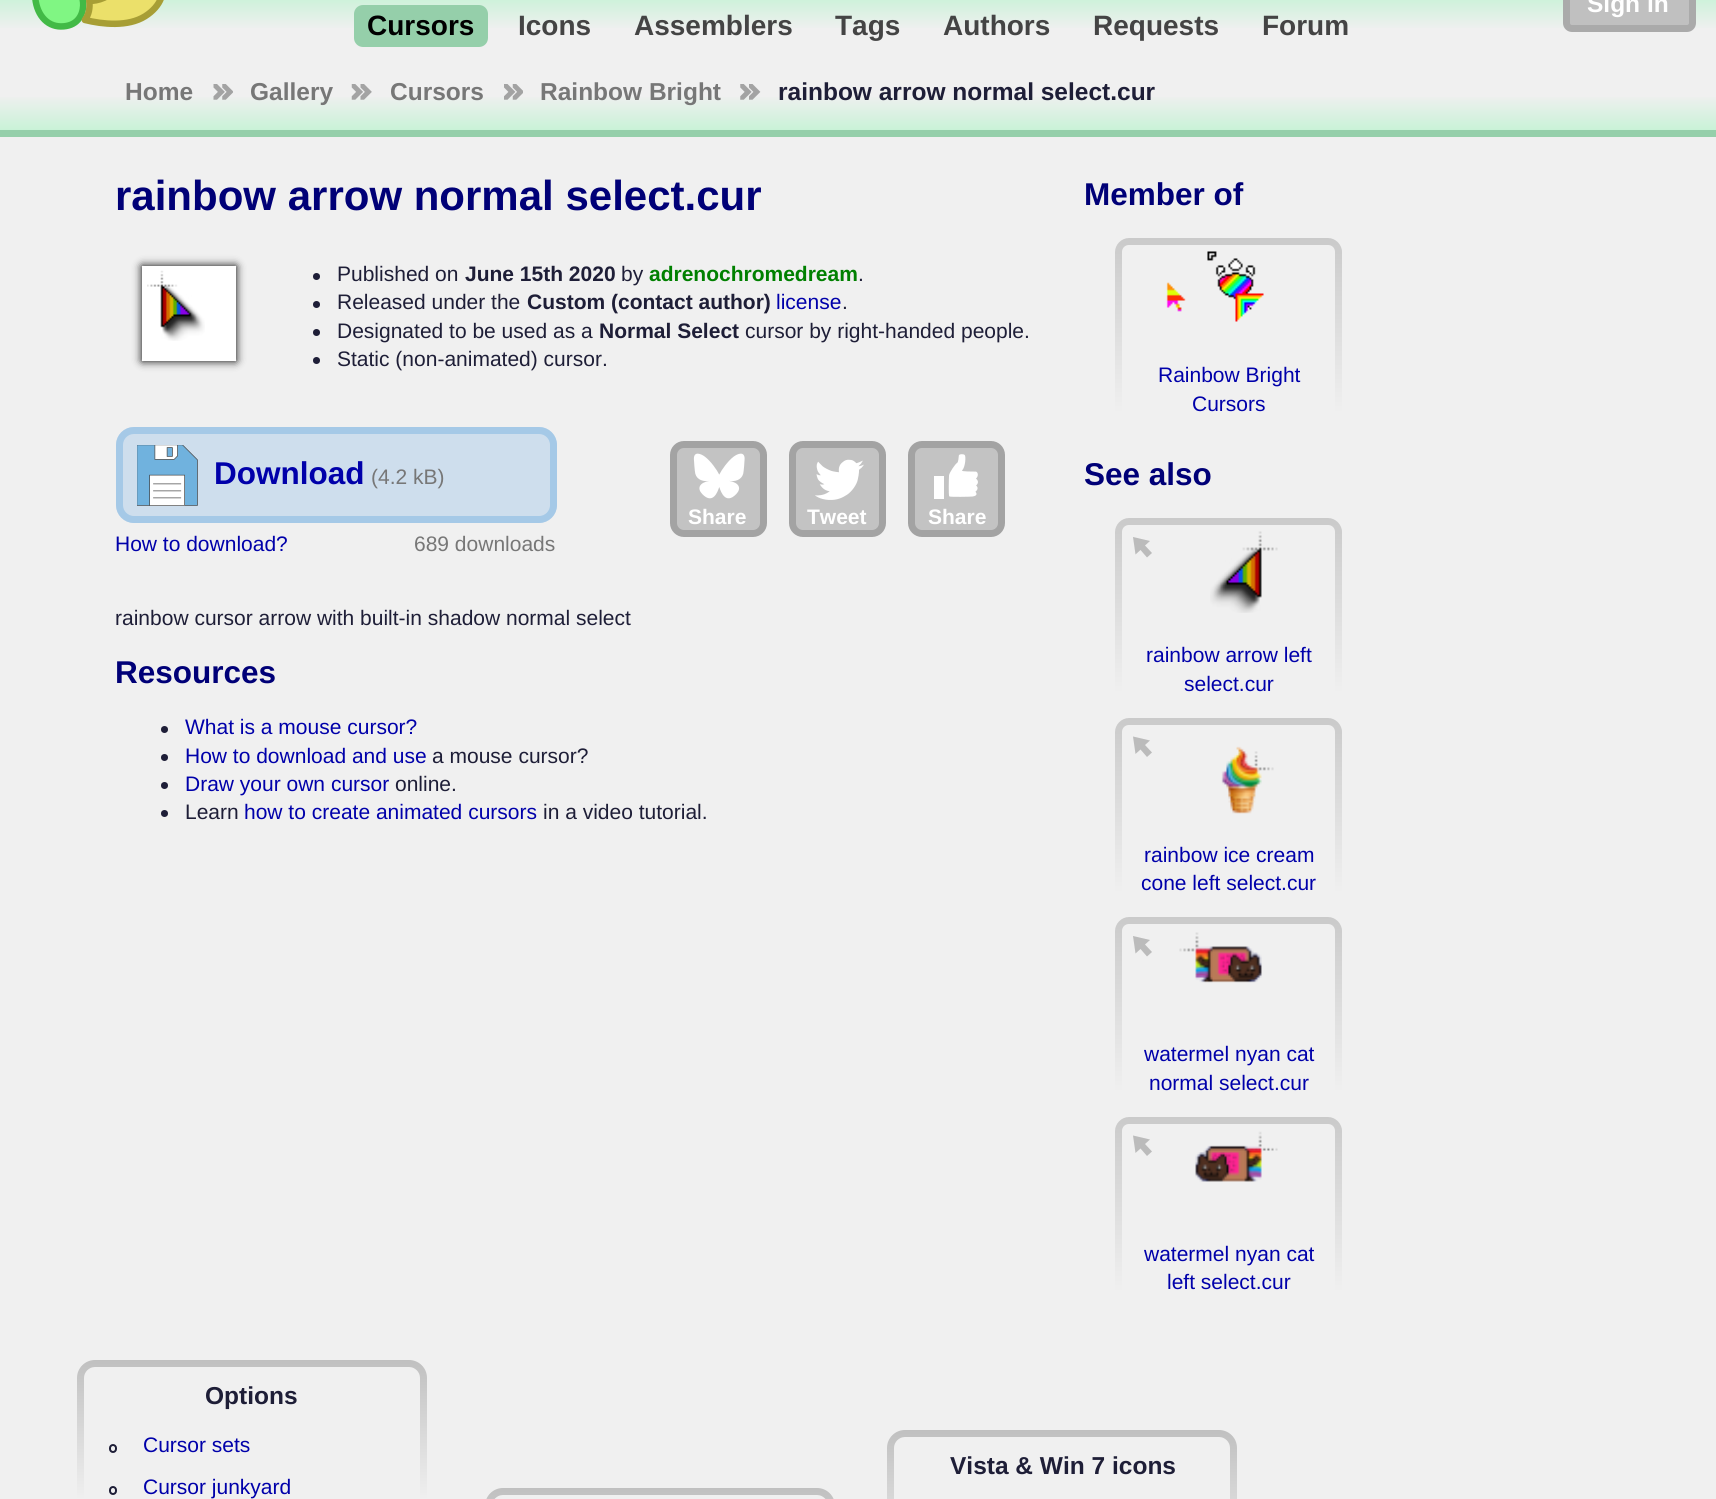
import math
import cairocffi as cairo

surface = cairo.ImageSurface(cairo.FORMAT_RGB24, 1716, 1499)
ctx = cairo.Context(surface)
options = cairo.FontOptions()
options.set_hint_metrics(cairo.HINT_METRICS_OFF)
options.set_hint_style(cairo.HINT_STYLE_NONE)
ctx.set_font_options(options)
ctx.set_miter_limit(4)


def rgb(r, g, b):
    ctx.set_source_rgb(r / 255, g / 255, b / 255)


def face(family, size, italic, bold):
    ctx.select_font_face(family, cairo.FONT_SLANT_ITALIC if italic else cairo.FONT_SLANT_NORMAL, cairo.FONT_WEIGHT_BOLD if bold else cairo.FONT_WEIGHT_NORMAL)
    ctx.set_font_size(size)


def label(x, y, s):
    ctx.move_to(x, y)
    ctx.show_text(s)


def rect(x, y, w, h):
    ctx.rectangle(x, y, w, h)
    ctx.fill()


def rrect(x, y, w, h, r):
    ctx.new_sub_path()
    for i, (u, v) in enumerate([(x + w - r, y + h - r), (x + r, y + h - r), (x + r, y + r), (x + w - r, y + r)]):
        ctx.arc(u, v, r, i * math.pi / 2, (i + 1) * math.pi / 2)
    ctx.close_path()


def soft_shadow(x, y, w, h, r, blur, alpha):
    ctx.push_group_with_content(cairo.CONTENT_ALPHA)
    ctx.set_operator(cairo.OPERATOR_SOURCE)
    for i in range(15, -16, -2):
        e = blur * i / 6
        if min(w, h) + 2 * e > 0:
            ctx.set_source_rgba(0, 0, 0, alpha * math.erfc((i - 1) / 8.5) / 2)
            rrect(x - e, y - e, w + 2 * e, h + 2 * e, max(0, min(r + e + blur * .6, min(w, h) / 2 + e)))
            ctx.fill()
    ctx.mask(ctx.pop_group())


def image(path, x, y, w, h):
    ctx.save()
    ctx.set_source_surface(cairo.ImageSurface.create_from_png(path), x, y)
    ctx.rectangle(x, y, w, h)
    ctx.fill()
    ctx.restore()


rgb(240, 240, 240)
ctx.paint()
gradient = cairo.LinearGradient(858, -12, 858, 75)
gradient.add_color_stop_rgba(0, 0.584, 0.812, 0.667, 1)
gradient.add_color_stop_rgba(0.08, 0.584, 0.812, 0.667, 1)
gradient.add_color_stop_rgba(0.08, 0.788, 0.949, 0.843, 1)
gradient.add_color_stop_rgba(0.48, 0.941, 0.941, 0.941, 1)
ctx.set_source(gradient)
rect(0, 0, 1716, 28)
image('image0.png', 32, 0, 132, 30)
rgb(192, 192, 192)
rrect(1566.5, -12.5, 126, 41, 5.5)
ctx.fill_preserve()
rgb(170, 170, 170)
ctx.set_line_width(7)
ctx.stroke()
face('Liberation Sans', 24.5, 0, 1)
rgb(255, 255, 255)
label(1587, 12, 'Sign in')
rgb(149, 207, 170)
rrect(354, 5, 134, 42, 9)
ctx.fill()
face('Liberation Sans', 28, 0, 1)
rgb(0, 0, 0)
label(367, 35, 'Cursors')
rgb(68, 68, 68)
label(518, 35, 'Icons')
label(634, 35, 'Assemblers')
label(835, 35, 'Tags')
label(943, 35, 'Authors')
label(1093, 35, 'Requests')
label(1262, 35, 'Forum')
gradient = cairo.LinearGradient(858, 130, 858, 3.5)
gradient.add_color_stop_rgba(0, 0.788, 0.949, 0.843, 1)
gradient.add_color_stop_rgba(0.28, 0.941, 0.941, 0.941, 1)
ctx.set_source(gradient)
rect(0, 97, 1716, 33)
rgb(149, 207, 170)
rect(0, 130, 1716, 7)
face('Liberation Sans', 24.5, 0, 1)
rgb(119, 119, 119)
label(125, 100, 'Home')
image('image1.png', 213, 84, 20, 16)
label(250, 100, 'Gallery')
image('image2.png', 351, 84, 21, 16)
label(390, 100, 'Cursors')
image('image3.png', 504, 84, 19, 16)
label(540, 100, 'Rainbow Bright')
image('image4.png', 740, 84, 21, 16)
rgb(30, 30, 55)
label(778, 100, 'rainbow arrow normal select.cur')
face('Liberation Sans', 42, 0, 1)
rgb(0, 0, 119)
label(115, 210, 'rainbow arrow normal select.cur')
rgb(0, 0, 0)
soft_shadow(142, 266, 94, 95, 0, 4.5, 1)
rgb(255, 255, 255)
rect(142, 266, 94, 95)
image('image5.png', 147, 270, 58, 71)
rgb(30, 30, 55)
ctx.arc(316.5, 276.5, 3.5, 0, 2 * math.pi)
ctx.fill()
face('Liberation Sans', 21, 0, 0)
label(337, 281, 'Published on')
face('Liberation Sans', 21, 0, 1)
label(465, 281, 'June 15th 2020')
face('Liberation Sans', 21, 0, 0)
label(621, 281, 'by')
face('Liberation Sans', 21, 0, 1)
rgb(0, 128, 0)
label(649, 281, 'adrenochromedream')
face('Liberation Sans', 21, 0, 0)
rgb(30, 30, 55)
label(858, 281, '.')
ctx.new_path()
ctx.arc(316.5, 304.5, 3.5, 0, 2 * math.pi)
ctx.fill()
label(337, 309, 'Released under the')
face('Liberation Sans', 21, 0, 1)
label(527, 309, 'Custom (contact author)')
face('Liberation Sans', 21, 0, 0)
rgb(0, 0, 170)
label(776, 309, 'license')
rgb(30, 30, 55)
label(842, 309, '.')
ctx.new_path()
ctx.arc(316.5, 332.5, 3.5, 0, 2 * math.pi)
ctx.fill()
label(337, 338, 'Designated to be used as a')
face('Liberation Sans', 21, 0, 1)
label(599, 338, 'Normal Select')
face('Liberation Sans', 21, 0, 0)
label(745, 338, 'cursor by right-handed people.')
ctx.new_path()
ctx.arc(316.5, 360.5, 3.5, 0, 2 * math.pi)
ctx.fill()
label(337, 366, 'Static (non-animated) cursor.')
rgb(206, 222, 237)
rrect(116, 427, 441, 96, 18)
ctx.fill()
image('image6.png', 137, 445, 61, 61)
rrect(119.5, 430.5, 434, 89, 14.5)
rgb(165, 201, 231)
ctx.stroke()
face('Liberation Sans', 31.5, 0, 1)
rgb(0, 0, 170)
label(214, 484, 'Download')
face('Liberation Sans', 21, 0, 0)
rgb(119, 119, 119)
label(371, 484, '(4.2 kB)')
rgb(0, 0, 170)
label(115, 551, 'How to download?')
rgb(119, 119, 119)
label(414, 551, '689 downloads')
rgb(195, 195, 195)
rrect(673.5, 444.5, 90, 89, 10.5)
ctx.fill_preserve()
rgb(163, 163, 163)
ctx.stroke()
image('image7.png', 693, 453, 52, 46)
face('Liberation Sans', 21, 0, 1)
rgb(255, 255, 255)
label(688, 524, 'Share')
rgb(195, 195, 195)
rrect(792.5, 444.5, 90, 89, 10.5)
ctx.fill_preserve()
rgb(163, 163, 163)
ctx.stroke()
image('image8.png', 815, 459, 49, 41)
rgb(255, 255, 255)
label(807, 524, 'Tweet')
rgb(195, 195, 195)
rrect(911.5, 444.5, 90, 89, 10.5)
ctx.fill_preserve()
rgb(163, 163, 163)
ctx.stroke()
image('image9.png', 934, 454, 44, 45)
rgb(255, 255, 255)
label(928, 524, 'Share')
face('Liberation Sans', 21, 0, 0)
rgb(30, 30, 55)
label(115, 625, 'rainbow cursor arrow with built-in shadow normal select')
face('Liberation Sans', 31.5, 0, 1)
rgb(0, 0, 119)
label(115, 683, 'Resources')
rgb(30, 30, 55)
ctx.new_path()
ctx.arc(164.5, 729.5, 3.5, 0, 2 * math.pi)
ctx.fill()
face('Liberation Sans', 21, 0, 0)
rgb(0, 0, 170)
label(185, 734, 'What is a mouse cursor?')
rgb(30, 30, 55)
ctx.new_path()
ctx.arc(164.5, 757.5, 3.5, 0, 2 * math.pi)
ctx.fill()
rgb(0, 0, 170)
label(185, 763, 'How to download and use')
rgb(30, 30, 55)
label(432, 763, 'a mouse cursor?')
ctx.new_path()
ctx.arc(164.5, 785.5, 3.5, 0, 2 * math.pi)
ctx.fill()
rgb(0, 0, 170)
label(185, 791, 'Draw your own cursor')
rgb(30, 30, 55)
label(395, 791, 'online.')
ctx.new_path()
ctx.arc(164.5, 813.5, 3.5, 0, 2 * math.pi)
ctx.fill()
label(185, 819, 'Learn')
rgb(0, 0, 170)
label(244, 819, 'how to create animated cursors')
rgb(30, 30, 55)
label(543, 819, 'in a video tutorial.')
face('Liberation Sans', 31.5, 0, 1)
rgb(0, 0, 119)
label(1084, 205, 'Member of')
gradient = cairo.LinearGradient(1229, 238, 1229, 413)
gradient.add_color_stop_rgba(0, 0.792, 0.792, 0.792, 1)
gradient.add_color_stop_rgba(1, 0.941, 0.941, 0.941, 1)
ctx.set_source(gradient)
ctx.new_path()
ctx.move_to(1129, 238)
ctx.line_to(1328, 238)
ctx.curve_to(1335.5, 238, 1342, 244.5, 1342, 252)
ctx.line_to(1342, 413)
ctx.line_to(1115, 413)
ctx.line_to(1115, 252)
ctx.curve_to(1115, 244.5, 1121.5, 238, 1129, 238)
ctx.close_path()
ctx.fill()
rgb(240, 240, 240)
ctx.new_path()
ctx.move_to(1129, 245)
ctx.line_to(1328, 245)
ctx.curve_to(1332, 245, 1335, 248, 1335, 252)
ctx.line_to(1335, 413)
ctx.line_to(1122, 413)
ctx.line_to(1122, 252)
ctx.curve_to(1122, 248, 1125, 245, 1129, 245)
ctx.close_path()
ctx.fill()
image('image10.png', 1166, 251, 98, 71)
face('Liberation Sans', 21, 0, 0)
rgb(0, 0, 170)
label(1158, 382, 'Rainbow Bright')
label(1192, 411, 'Cursors')
face('Liberation Sans', 31.5, 0, 1)
rgb(0, 0, 119)
label(1084, 485, 'See also')
gradient = cairo.LinearGradient(1229, 518, 1229, 693)
gradient.add_color_stop_rgba(0, 0.792, 0.792, 0.792, 1)
gradient.add_color_stop_rgba(1, 0.941, 0.941, 0.941, 1)
ctx.set_source(gradient)
ctx.new_path()
ctx.move_to(1129, 518)
ctx.line_to(1328, 518)
ctx.curve_to(1335.5, 518, 1342, 524.5, 1342, 532)
ctx.line_to(1342, 693)
ctx.line_to(1115, 693)
ctx.line_to(1115, 532)
ctx.curve_to(1115, 524.5, 1121.5, 518, 1129, 518)
ctx.close_path()
ctx.fill()
rgb(240, 240, 240)
ctx.new_path()
ctx.move_to(1129, 525)
ctx.line_to(1328, 525)
ctx.curve_to(1332, 525, 1335, 528, 1335, 532)
ctx.line_to(1335, 693)
ctx.line_to(1122, 693)
ctx.line_to(1122, 532)
ctx.curve_to(1122, 528, 1125, 525, 1129, 525)
ctx.close_path()
ctx.fill()
rgb(187, 187, 187)
ctx.new_path()
ctx.move_to(1133, 537)
ctx.line_to(1150, 541)
ctx.line_to(1145, 545.5)
ctx.line_to(1152, 553)
ctx.line_to(1147, 557.5)
ctx.line_to(1140.5, 550)
ctx.line_to(1135.5, 554.5)
ctx.close_path()
ctx.fill()
image('image11.png', 1210, 531, 68, 82)
face('Liberation Sans', 21, 0, 0)
rgb(0, 0, 170)
label(1146, 662, 'rainbow arrow left')
label(1184, 691, 'select.cur')
gradient = cairo.LinearGradient(1229, 718, 1229, 893)
gradient.add_color_stop_rgba(0, 0.792, 0.792, 0.792, 1)
gradient.add_color_stop_rgba(1, 0.941, 0.941, 0.941, 1)
ctx.set_source(gradient)
ctx.new_path()
ctx.move_to(1129, 718)
ctx.line_to(1328, 718)
ctx.curve_to(1335.5, 718, 1342, 724.5, 1342, 732)
ctx.line_to(1342, 893)
ctx.line_to(1115, 893)
ctx.line_to(1115, 732)
ctx.curve_to(1115, 724.5, 1121.5, 718, 1129, 718)
ctx.close_path()
ctx.fill()
rgb(240, 240, 240)
ctx.new_path()
ctx.move_to(1129, 725)
ctx.line_to(1328, 725)
ctx.curve_to(1332, 725, 1335, 728, 1335, 732)
ctx.line_to(1335, 893)
ctx.line_to(1122, 893)
ctx.line_to(1122, 732)
ctx.curve_to(1122, 728, 1125, 725, 1129, 725)
ctx.close_path()
ctx.fill()
rgb(187, 187, 187)
ctx.new_path()
ctx.move_to(1133, 736.5)
ctx.line_to(1150, 740.5)
ctx.line_to(1145, 745)
ctx.line_to(1152, 752.5)
ctx.line_to(1147, 757)
ctx.line_to(1140.5, 749.5)
ctx.line_to(1135.5, 754)
ctx.close_path()
ctx.fill()
image('image12.png', 1221, 746, 53, 68)
rgb(0, 0, 170)
label(1144, 862, 'rainbow ice cream')
label(1141, 890, 'cone left select.cur')
gradient = cairo.LinearGradient(1229, 917, 1229, 1092)
gradient.add_color_stop_rgba(0, 0.792, 0.792, 0.792, 1)
gradient.add_color_stop_rgba(1, 0.941, 0.941, 0.941, 1)
ctx.set_source(gradient)
ctx.new_path()
ctx.move_to(1129, 917)
ctx.line_to(1328, 917)
ctx.curve_to(1335.5, 917, 1342, 923.5, 1342, 931)
ctx.line_to(1342, 1092)
ctx.line_to(1115, 1092)
ctx.line_to(1115, 931)
ctx.curve_to(1115, 923.5, 1121.5, 917, 1129, 917)
ctx.close_path()
ctx.fill()
rgb(240, 240, 240)
ctx.new_path()
ctx.move_to(1129, 924)
ctx.line_to(1328, 924)
ctx.curve_to(1332, 924, 1335, 927, 1335, 931)
ctx.line_to(1335, 1092)
ctx.line_to(1122, 1092)
ctx.line_to(1122, 931)
ctx.curve_to(1122, 927, 1125, 924, 1129, 924)
ctx.close_path()
ctx.fill()
rgb(187, 187, 187)
ctx.new_path()
ctx.move_to(1133, 936)
ctx.line_to(1150, 940)
ctx.line_to(1145, 944.5)
ctx.line_to(1152, 952)
ctx.line_to(1147, 956.5)
ctx.line_to(1140.5, 949)
ctx.line_to(1135.5, 953.5)
ctx.close_path()
ctx.fill()
image('image13.png', 1179, 932, 83, 51)
rgb(0, 0, 170)
label(1144, 1061, 'watermel nyan cat')
label(1149, 1090, 'normal select.cur')
gradient = cairo.LinearGradient(1229, 1117, 1229, 1292)
gradient.add_color_stop_rgba(0, 0.792, 0.792, 0.792, 1)
gradient.add_color_stop_rgba(1, 0.941, 0.941, 0.941, 1)
ctx.set_source(gradient)
ctx.new_path()
ctx.move_to(1129, 1117)
ctx.line_to(1328, 1117)
ctx.curve_to(1335.5, 1117, 1342, 1123.5, 1342, 1131)
ctx.line_to(1342, 1292)
ctx.line_to(1115, 1292)
ctx.line_to(1115, 1131)
ctx.curve_to(1115, 1123.5, 1121.5, 1117, 1129, 1117)
ctx.close_path()
ctx.fill()
rgb(240, 240, 240)
ctx.new_path()
ctx.move_to(1129, 1124)
ctx.line_to(1328, 1124)
ctx.curve_to(1332, 1124, 1335, 1127, 1335, 1131)
ctx.line_to(1335, 1292)
ctx.line_to(1122, 1292)
ctx.line_to(1122, 1131)
ctx.curve_to(1122, 1127, 1125, 1124, 1129, 1124)
ctx.close_path()
ctx.fill()
rgb(187, 187, 187)
ctx.new_path()
ctx.move_to(1133, 1135.5)
ctx.line_to(1150, 1139.5)
ctx.line_to(1145, 1144)
ctx.line_to(1152, 1151.5)
ctx.line_to(1147, 1156)
ctx.line_to(1140.5, 1148.5)
ctx.line_to(1135.5, 1153)
ctx.close_path()
ctx.fill()
image('image14.png', 1195, 1131, 83, 51)
rgb(0, 0, 170)
label(1144, 1261, 'watermel nyan cat')
label(1167, 1289, 'left select.cur')
gradient = cairo.LinearGradient(252, 1360, 252, 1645)
gradient.add_color_stop_rgba(0, 0.753, 0.753, 0.753, 1)
gradient.add_color_stop_rgba(0.49, 0.941, 0.941, 0.941, 1)
ctx.set_source(gradient)
ctx.new_path()
ctx.move_to(95, 1360)
ctx.line_to(409, 1360)
ctx.curve_to(419, 1360, 427, 1368, 427, 1378)
ctx.line_to(427, 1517)
ctx.line_to(77, 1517)
ctx.line_to(77, 1378)
ctx.curve_to(77, 1368, 85, 1360, 95, 1360)
ctx.close_path()
ctx.fill()
rgb(240, 240, 240)
ctx.new_path()
ctx.move_to(95, 1367)
ctx.line_to(409, 1367)
ctx.curve_to(415, 1367, 420, 1372, 420, 1378)
ctx.line_to(420, 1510)
ctx.line_to(84, 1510)
ctx.line_to(84, 1378)
ctx.curve_to(84, 1372, 89, 1367, 95, 1367)
ctx.close_path()
ctx.fill()
face('Liberation Sans', 24.5, 0, 1)
rgb(30, 30, 55)
label(205, 1404, 'Options')
rrect(110, 1445, 6, 7, 3)
ctx.set_line_width(2)
ctx.stroke()
face('Liberation Sans', 21, 0, 0)
rgb(0, 0, 170)
label(143, 1452, 'Cursor sets')
rrect(110, 1487, 6, 7, 3)
rgb(30, 30, 55)
ctx.stroke()
rgb(0, 0, 170)
label(143, 1494, 'Cursor junkyard')
gradient = cairo.LinearGradient(1062, 1430, 1062, 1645)
gradient.add_color_stop_rgba(0, 0.753, 0.753, 0.753, 1)
gradient.add_color_stop_rgba(0.65, 0.941, 0.941, 0.941, 1)
ctx.set_source(gradient)
ctx.new_path()
ctx.move_to(905, 1430)
ctx.line_to(1219, 1430)
ctx.curve_to(1229, 1430, 1237, 1438, 1237, 1448)
ctx.line_to(1237, 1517)
ctx.line_to(887, 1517)
ctx.line_to(887, 1448)
ctx.curve_to(887, 1438, 895, 1430, 905, 1430)
ctx.close_path()
ctx.fill()
rgb(240, 240, 240)
ctx.new_path()
ctx.move_to(905, 1437)
ctx.line_to(1219, 1437)
ctx.curve_to(1225, 1437, 1230, 1442, 1230, 1448)
ctx.line_to(1230, 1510)
ctx.line_to(894, 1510)
ctx.line_to(894, 1448)
ctx.curve_to(894, 1442, 899, 1437, 905, 1437)
ctx.close_path()
ctx.fill()
face('Liberation Sans', 24.5, 0, 1)
rgb(30, 30, 55)
label(950, 1474, 'Vista & Win 7 icons')
gradient = cairo.LinearGradient(660, 1488, 660, 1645)
gradient.add_color_stop_rgba(0, 0.753, 0.753, 0.753, 1)
gradient.add_color_stop_rgba(0.89, 0.941, 0.941, 0.941, 1)
ctx.set_source(gradient)
ctx.new_path()
ctx.move_to(503, 1488)
ctx.line_to(817, 1488)
ctx.curve_to(827, 1488, 835, 1496, 835, 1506)
ctx.line_to(835, 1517)
ctx.line_to(485, 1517)
ctx.line_to(485, 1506)
ctx.curve_to(485, 1496, 493, 1488, 503, 1488)
ctx.close_path()
ctx.fill()
rgb(240, 240, 240)
ctx.new_path()
ctx.move_to(503, 1495)
ctx.line_to(817, 1495)
ctx.curve_to(823, 1495, 828, 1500, 828, 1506)
ctx.line_to(828, 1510)
ctx.line_to(492, 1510)
ctx.line_to(492, 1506)
ctx.curve_to(492, 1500, 497, 1495, 503, 1495)
ctx.close_path()
ctx.fill()
surface.write_to_png('render.png')
